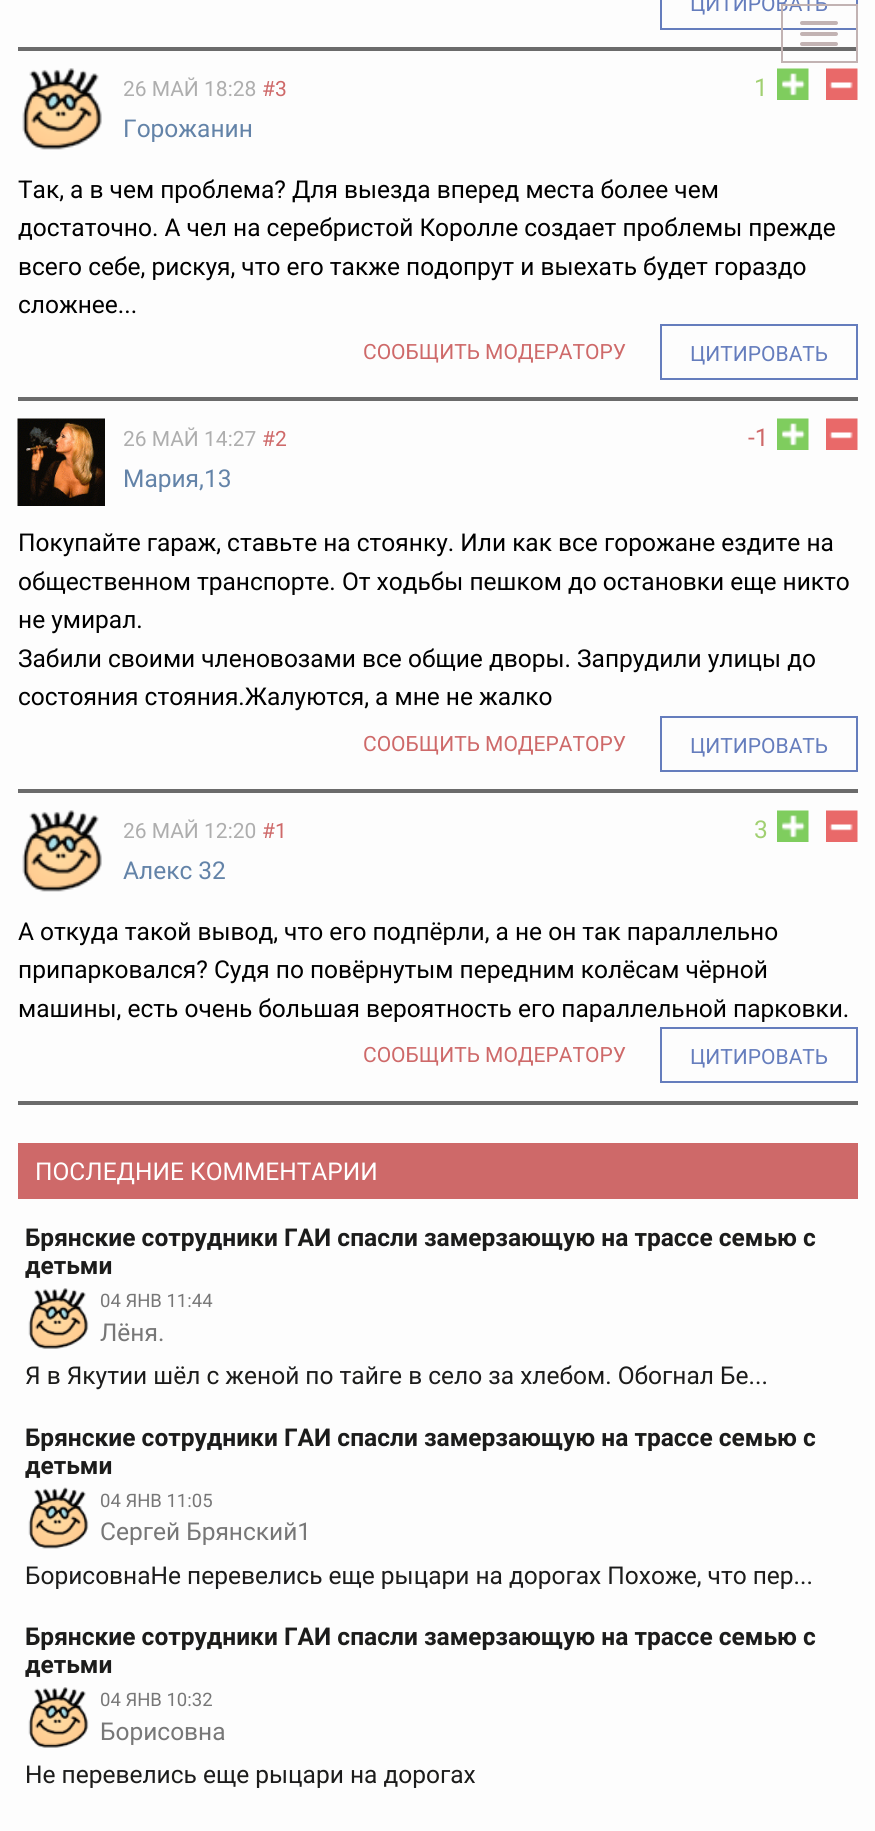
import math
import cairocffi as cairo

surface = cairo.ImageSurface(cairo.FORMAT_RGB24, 875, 1831)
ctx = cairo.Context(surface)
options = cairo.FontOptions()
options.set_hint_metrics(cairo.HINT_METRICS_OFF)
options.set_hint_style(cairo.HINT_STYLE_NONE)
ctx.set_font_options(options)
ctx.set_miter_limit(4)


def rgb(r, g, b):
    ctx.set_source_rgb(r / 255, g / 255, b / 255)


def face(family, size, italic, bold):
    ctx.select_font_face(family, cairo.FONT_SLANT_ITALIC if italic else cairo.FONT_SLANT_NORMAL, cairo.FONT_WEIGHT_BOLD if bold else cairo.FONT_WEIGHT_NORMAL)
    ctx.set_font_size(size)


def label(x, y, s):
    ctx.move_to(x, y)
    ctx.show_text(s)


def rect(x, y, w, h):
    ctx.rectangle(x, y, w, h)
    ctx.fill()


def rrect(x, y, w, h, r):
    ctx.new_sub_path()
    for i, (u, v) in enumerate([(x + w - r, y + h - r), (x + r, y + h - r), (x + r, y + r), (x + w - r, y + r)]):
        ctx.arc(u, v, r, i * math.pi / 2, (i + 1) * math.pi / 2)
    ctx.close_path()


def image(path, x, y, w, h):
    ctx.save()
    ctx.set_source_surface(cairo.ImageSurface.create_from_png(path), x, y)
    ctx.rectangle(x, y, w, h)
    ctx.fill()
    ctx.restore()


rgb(253, 253, 253)
ctx.paint()
rgb(107, 107, 107)
rect(18, 47, 840, 4)
ctx.rectangle(661, -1, 196, 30)
rgb(101, 125, 189)
ctx.stroke()
face('Roboto', 21, 0, 0)
label(690, 11, 'ЦИТИРОВАТЬ')
rgb(107, 107, 107)
rect(18, 397, 840, 4)
image('image0.png', 22, 68, 80, 82)
rgb(174, 174, 174)
label(123, 96, '26 МАЙ 18:28')
rgb(206, 105, 105)
label(262, 96, '#3')
face('Roboto', 24.5, 0, 0)
rgb(99, 131, 168)
label(123, 137, 'Горожанин')
rgb(161, 208, 113)
label(754, 96, '1')
image('image1.png', 777, 68, 32, 32)
image('image2.png', 826, 68, 32, 32)
rgb(0, 0, 0)
label(18, 198, 'Так, а в чем проблема? Для выезда вперед места более чем')
label(18, 236, 'достаточно. А чел на серебристой Королле создает проблемы прежде')
label(18, 275, 'всего себе, рискуя, что его также подопрут и выехать будет гораздо')
label(18, 313, 'сложнее...')
face('Roboto', 21, 0, 0)
rgb(206, 105, 105)
label(363, 359, 'СООБЩИТЬ МОДЕРАТОРУ')
ctx.rectangle(661, 325, 196, 54)
rgb(101, 125, 189)
ctx.stroke()
label(690, 361, 'ЦИТИРОВАТЬ')
rgb(107, 107, 107)
rect(18, 789, 840, 4)
image('image3.png', 17, 418, 88, 88)
rgb(174, 174, 174)
label(123, 446, '26 МАЙ 14:27')
rgb(206, 105, 105)
label(262, 446, '#2')
face('Roboto', 24.5, 0, 0)
rgb(99, 131, 168)
label(123, 487, 'Мария,13')
rgb(206, 105, 105)
label(748, 446, '-1')
image('image1.png', 777, 418, 32, 32)
image('image2.png', 826, 418, 32, 32)
rgb(0, 0, 0)
label(18, 551, 'Покупайте гараж, ставьте на стоянку. Или как все горожане ездите на')
label(18, 590, 'общественном транспорте. От ходьбы пешком до остановки еще никто')
label(18, 628, 'не умирал.')
label(18, 667, 'Забили своими членовозами все общие дворы. Запрудили улицы до')
label(18, 705, 'состояния стояния.Жалуются, а мне не жалко')
face('Roboto', 21, 0, 0)
rgb(206, 105, 105)
label(363, 751, 'СООБЩИТЬ МОДЕРАТОРУ')
ctx.rectangle(661, 717, 196, 54)
rgb(101, 125, 189)
ctx.stroke()
label(690, 753, 'ЦИТИРОВАТЬ')
rgb(107, 107, 107)
rect(18, 1101, 840, 4)
image('image0.png', 22, 810, 80, 82)
rgb(174, 174, 174)
label(123, 838, '26 МАЙ 12:20')
rgb(206, 105, 105)
label(262, 838, '#1')
face('Roboto', 24.5, 0, 0)
rgb(99, 131, 168)
label(123, 879, 'Алекс 32')
rgb(161, 208, 113)
label(754, 838, '3')
image('image1.png', 777, 810, 32, 32)
image('image2.png', 826, 810, 32, 32)
rgb(0, 0, 0)
label(18, 940, 'А откуда такой вывод, что его подпёрли, а не он так параллельно')
label(18, 978, 'припарковался? Судя по повёрнутым передним колёсам чёрной')
label(18, 1017, 'машины, есть очень большая вероятность его параллельной парковки.')
face('Roboto', 21, 0, 0)
rgb(206, 105, 105)
label(363, 1062, 'СООБЩИТЬ МОДЕРАТОРУ')
ctx.rectangle(661, 1028, 196, 54)
rgb(101, 125, 189)
ctx.stroke()
label(690, 1064, 'ЦИТИРОВАТЬ')
rgb(206, 105, 105)
rect(18, 1143, 840, 56)
face('Roboto', 24.5, 0, 0)
rgb(255, 255, 255)
label(35, 1180, 'ПОСЛЕДНИЕ КОММЕНТАРИИ')
face('Roboto', 24.5, 0, 1)
rgb(28, 28, 27)
label(25, 1246, 'Брянские сотрудники ГАИ спасли замерзающую на трассе семью с')
label(25, 1274, 'детьми')
image('image4.png', 28, 1288, 61, 61)
face('Roboto', 18.5, 0, 0)
rgb(119, 119, 119)
label(100, 1307, '04 ЯНВ 11:44')
face('Roboto', 24.5, 0, 0)
label(100, 1341, 'Лёня.')
rgb(28, 28, 27)
label(25, 1384, 'Я в Якутии шёл с женой по тайге в село за хлебом. Обогнал Бе...')
face('Roboto', 24.5, 0, 1)
label(25, 1446, 'Брянские сотрудники ГАИ спасли замерзающую на трассе семью с')
label(25, 1474, 'детьми')
image('image5.png', 28, 1487, 61, 62)
face('Roboto', 18.5, 0, 0)
rgb(119, 119, 119)
label(100, 1507, '04 ЯНВ 11:05')
face('Roboto', 24.5, 0, 0)
label(100, 1540, 'Сергей Брянский1')
rgb(28, 28, 27)
label(25, 1584, 'БорисовнаНе перевелись еще рыцари на дорогах Похоже, что пер...')
face('Roboto', 24.5, 0, 1)
label(25, 1645, 'Брянские сотрудники ГАИ спасли замерзающую на трассе семью с')
label(25, 1673, 'детьми')
image('image4.png', 28, 1687, 61, 61)
face('Roboto', 18.5, 0, 0)
rgb(119, 119, 119)
label(100, 1706, '04 ЯНВ 10:32')
face('Roboto', 24.5, 0, 0)
label(100, 1740, 'Борисовна')
rgb(28, 28, 27)
label(25, 1783, 'Не перевелись еще рыцари на дорогах')
ctx.rectangle(782, 5, 75, 57)
rgb(194, 179, 179)
ctx.stroke()
rrect(800, 21, 38, 4, 2)
ctx.fill()
rrect(800, 32, 38, 4, 2)
ctx.fill()
rrect(800, 42, 38, 4, 2)
ctx.fill()
surface.write_to_png('render.png')
